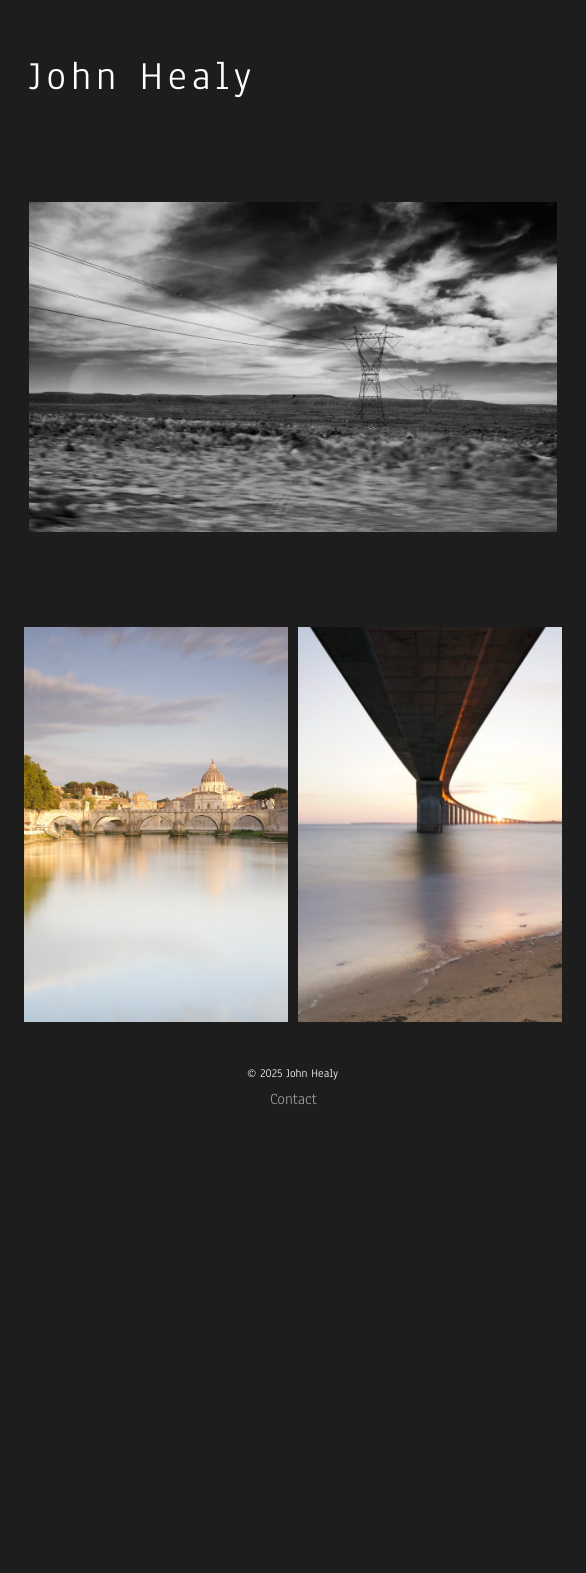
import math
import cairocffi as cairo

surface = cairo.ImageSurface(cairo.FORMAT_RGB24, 586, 1573)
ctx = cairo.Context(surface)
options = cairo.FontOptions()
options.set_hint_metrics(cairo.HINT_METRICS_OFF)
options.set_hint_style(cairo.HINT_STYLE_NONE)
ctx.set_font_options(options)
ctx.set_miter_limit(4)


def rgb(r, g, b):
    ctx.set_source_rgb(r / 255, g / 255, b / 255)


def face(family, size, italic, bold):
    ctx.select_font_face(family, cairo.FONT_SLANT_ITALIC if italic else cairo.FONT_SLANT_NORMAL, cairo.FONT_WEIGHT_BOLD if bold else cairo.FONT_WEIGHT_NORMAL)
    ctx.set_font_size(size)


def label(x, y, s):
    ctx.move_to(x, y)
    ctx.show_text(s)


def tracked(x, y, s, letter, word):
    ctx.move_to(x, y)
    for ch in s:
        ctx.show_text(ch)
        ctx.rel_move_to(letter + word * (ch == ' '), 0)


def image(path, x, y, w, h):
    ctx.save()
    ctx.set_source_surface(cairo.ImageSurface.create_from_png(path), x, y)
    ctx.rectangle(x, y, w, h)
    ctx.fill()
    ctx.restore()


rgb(29, 29, 29)
ctx.paint()
face('Anaheim', 41, 0, 0)
rgb(255, 255, 255)
tracked(29, 89, 'John Healy', 5, 0)
image('image0.png', 29, 202, 528, 330)
image('image1.png', 24, 627, 264, 395)
image('image2.png', 298, 627, 264, 395)
face('Anaheim', 12, 0, 0)
label(247, 1077, '© 2025 John Healy')
face('Anaheim', 16, 0, 0)
rgb(153, 153, 153)
label(270, 1104, 'Contact')
surface.write_to_png('render.png')
